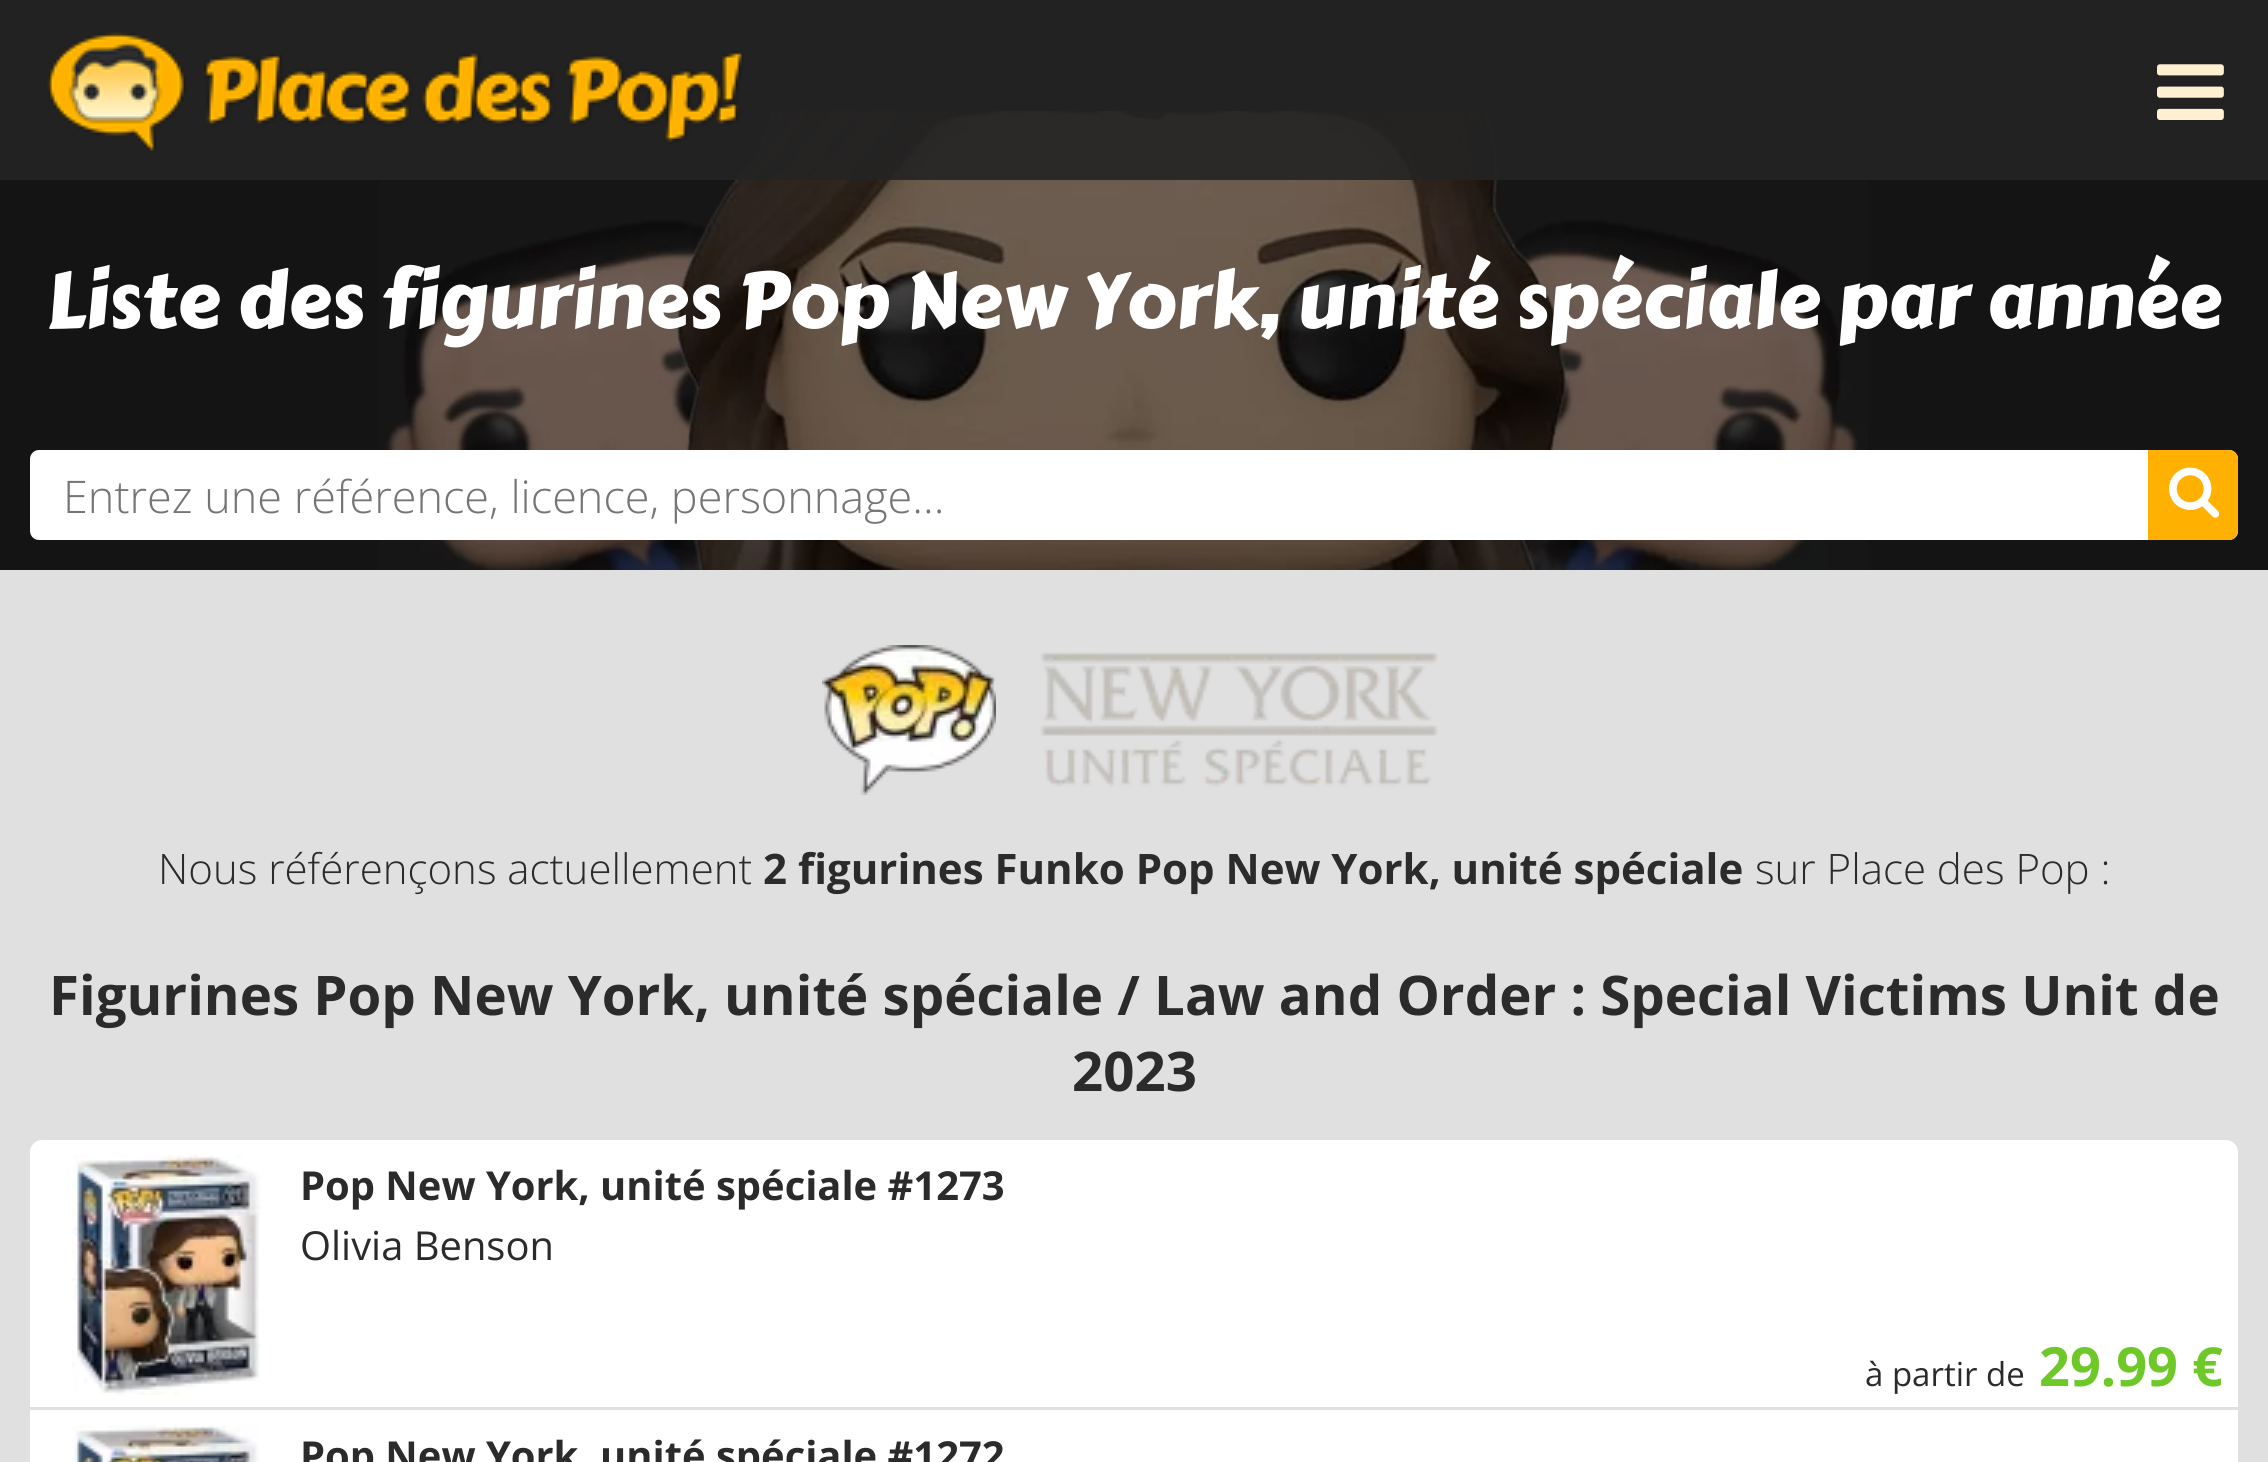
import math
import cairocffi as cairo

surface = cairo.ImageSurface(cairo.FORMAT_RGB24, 2268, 1462)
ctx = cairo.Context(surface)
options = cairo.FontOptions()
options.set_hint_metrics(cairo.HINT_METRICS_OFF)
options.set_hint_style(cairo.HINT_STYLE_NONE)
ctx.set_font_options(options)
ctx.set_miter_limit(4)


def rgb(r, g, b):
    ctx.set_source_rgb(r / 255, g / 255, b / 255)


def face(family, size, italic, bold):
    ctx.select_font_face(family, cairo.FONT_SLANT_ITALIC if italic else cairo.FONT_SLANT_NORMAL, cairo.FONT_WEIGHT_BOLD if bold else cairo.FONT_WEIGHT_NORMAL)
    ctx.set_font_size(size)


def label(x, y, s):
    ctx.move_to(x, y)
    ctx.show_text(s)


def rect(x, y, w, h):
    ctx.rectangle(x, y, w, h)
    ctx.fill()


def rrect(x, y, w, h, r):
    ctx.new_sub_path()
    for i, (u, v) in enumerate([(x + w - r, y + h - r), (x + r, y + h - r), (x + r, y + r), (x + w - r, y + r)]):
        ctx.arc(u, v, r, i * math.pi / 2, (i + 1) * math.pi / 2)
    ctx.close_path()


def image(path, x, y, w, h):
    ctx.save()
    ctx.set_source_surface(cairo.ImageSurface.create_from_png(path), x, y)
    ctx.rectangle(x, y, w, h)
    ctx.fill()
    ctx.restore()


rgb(224, 224, 224)
ctx.paint()
rgb(20, 20, 20)
rect(0, 0, 2268, 570)
image('image2.png', 379, 111, 1489, 459)
ctx.set_source_rgba(0.141, 0.141, 0.141, 0.9)
rect(0, 0, 2268, 180)
image('image0.png', 47, 32, 696, 120)
image('image1.png', 2157, 64, 67, 56)
face('Carter One', 78, 0, 0)
rgb(255, 255, 255)
label(46, 327, 'Liste des figurines Pop New York, unité spéciale par année')
rrect(31.5, 451.5, 2205, 87, 7.5)
ctx.fill_preserve()
ctx.set_line_width(3)
ctx.stroke()
face('Open Sans Light', 45, 0, 0)
rgb(117, 117, 117)
label(63, 513, 'Entrez une référence, licence, personnage...')
rgb(255, 176, 0)
ctx.new_path()
ctx.move_to(2149.5, 451.5)
ctx.line_to(2229, 451.5)
ctx.curve_to(2233, 451.5, 2236.5, 455, 2236.5, 459)
ctx.line_to(2236.5, 531)
ctx.curve_to(2236.5, 535, 2233, 538.5, 2229, 538.5)
ctx.line_to(2149.5, 538.5)
ctx.close_path()
ctx.fill_preserve()
ctx.stroke()
image('image3.png', 2169, 467, 51, 51)
image('image4.png', 822, 645, 174, 150)
image('image5.png', 1040, 652, 398, 135)
face('Open Sans Light', 42, 0, 0)
rgb(43, 43, 43)
label(158, 884, 'Nous référençons actuellement')
face('Open Sans', 42, 0, 1)
label(763, 884, '2 figurines Funko Pop New York, unité spéciale')
face('Open Sans Light', 42, 0, 0)
label(1755, 884, 'sur Place des Pop :')
face('Open Sans', 54.6, 0, 1)
label(49, 1015, 'Figurines Pop New York, unité spéciale / Law and Order : Special Victims Unit de')
label(1072, 1091, '2023')
rgb(255, 255, 255)
ctx.new_path()
ctx.move_to(42, 1140)
ctx.line_to(2226, 1140)
ctx.curve_to(2232.5, 1140, 2238, 1145.5, 2238, 1152)
ctx.line_to(2238, 1410)
ctx.line_to(30, 1410)
ctx.line_to(30, 1152)
ctx.curve_to(30, 1145.5, 35.5, 1140, 42, 1140)
ctx.close_path()
ctx.fill()
rgb(224, 224, 224)
rect(30, 1407, 2208, 3)
image('image6.png', 72, 1155, 189, 240)
face('Open Sans', 39.9, 0, 1)
rgb(43, 43, 43)
label(300, 1200, 'Pop New York, unité spéciale #1273')
face('Open Sans', 39.9, 0, 0)
label(300, 1260, 'Olivia Benson')
face('Open Sans', 33, 0, 0)
label(1865, 1386, 'à partir de')
face('Open Sans', 54, 0, 1)
rgb(110, 200, 40)
label(2039, 1386, '29.99 €')
rgb(255, 255, 255)
rect(30, 1410, 2208, 52)
image('image7.png', 72, 1425, 187, 37)
face('Open Sans', 39.9, 0, 1)
rgb(43, 43, 43)
label(300, 1470, 'Pop New York, unité spéciale #1272')
surface.write_to_png('render.png')
